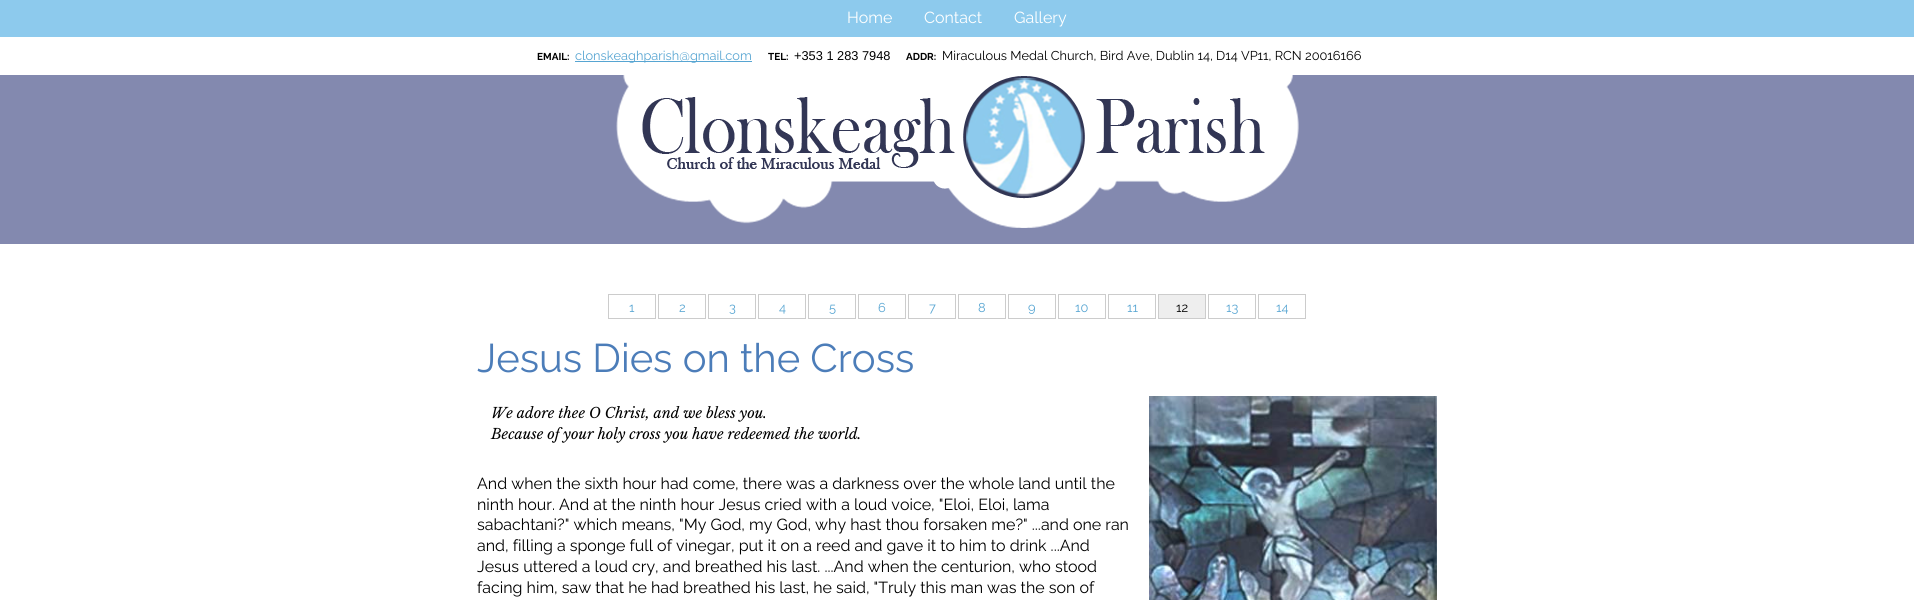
import math
import cairocffi as cairo

surface = cairo.ImageSurface(cairo.FORMAT_RGB24, 1914, 600)
ctx = cairo.Context(surface)
options = cairo.FontOptions()
options.set_hint_metrics(cairo.HINT_METRICS_OFF)
options.set_hint_style(cairo.HINT_STYLE_NONE)
ctx.set_font_options(options)
ctx.set_miter_limit(4)


def rgb(r, g, b):
    ctx.set_source_rgb(r / 255, g / 255, b / 255)


def face(family, size, italic, bold):
    ctx.select_font_face(family, cairo.FONT_SLANT_ITALIC if italic else cairo.FONT_SLANT_NORMAL, cairo.FONT_WEIGHT_BOLD if bold else cairo.FONT_WEIGHT_NORMAL)
    ctx.set_font_size(size)


def label(x, y, s):
    ctx.move_to(x, y)
    ctx.show_text(s)


def rect(x, y, w, h):
    ctx.rectangle(x, y, w, h)
    ctx.fill()


def image(path, x, y, w, h):
    ctx.save()
    ctx.set_source_surface(cairo.ImageSurface.create_from_png(path), x, y)
    ctx.rectangle(x, y, w, h)
    ctx.fill()
    ctx.restore()


rgb(255, 255, 255)
ctx.paint()
image('image0.png', 0, 37, 1914, 208)
rgb(141, 202, 237)
rect(0, 0, 1914, 37)
face('Raleway', 16, 0, 0)
rgb(255, 255, 255)
label(847, 23, 'Home')
label(924, 23, 'Contact')
label(1014, 23, 'Gallery')
face('Raleway', 10, 0, 1)
rgb(0, 0, 0)
label(537, 60, 'EMAIL:')
rgb(87, 165, 210)
rect(575, 61, 177, 1)
face('Raleway', 12.8, 0, 0)
label(575, 60, 'clonskeaghparish@gmail.com')
face('Raleway', 10, 0, 1)
rgb(0, 0, 0)
label(768, 60, 'TEL:')
face('Liberation Sans', 12.8, 0, 0)
label(794, 60, '+353 1 283 7948')
face('Raleway', 10, 0, 1)
label(906, 60, 'ADDR:')
face('Raleway', 12.8, 0, 0)
label(942, 60, 'Miraculous Medal Church, Bird Ave, Dublin 14, D14 VP11, RCN 20016166')
rgb(131, 137, 175)
rect(0, 75, 1914, 169)
image('image1.png', 616, 75, 683, 153)
ctx.rectangle(608.5, 294.5, 47, 24)
rgb(204, 204, 204)
ctx.set_line_width(1)
ctx.stroke()
rgb(87, 165, 210)
label(629, 312, '1')
ctx.rectangle(658.5, 294.5, 47, 24)
rgb(204, 204, 204)
ctx.stroke()
rgb(87, 165, 210)
label(679, 312, '2')
ctx.rectangle(708.5, 294.5, 47, 24)
rgb(204, 204, 204)
ctx.stroke()
rgb(87, 165, 210)
label(729, 312, '3')
ctx.rectangle(758.5, 294.5, 47, 24)
rgb(204, 204, 204)
ctx.stroke()
rgb(87, 165, 210)
label(779, 312, '4')
ctx.rectangle(808.5, 294.5, 47, 24)
rgb(204, 204, 204)
ctx.stroke()
rgb(87, 165, 210)
label(829, 312, '5')
ctx.rectangle(858.5, 294.5, 47, 24)
rgb(204, 204, 204)
ctx.stroke()
rgb(87, 165, 210)
label(878, 312, '6')
ctx.rectangle(908.5, 294.5, 47, 24)
rgb(204, 204, 204)
ctx.stroke()
rgb(87, 165, 210)
label(929, 312, '7')
ctx.rectangle(958.5, 294.5, 47, 24)
rgb(204, 204, 204)
ctx.stroke()
rgb(87, 165, 210)
label(978, 312, '8')
ctx.rectangle(1008.5, 294.5, 47, 24)
rgb(204, 204, 204)
ctx.stroke()
rgb(87, 165, 210)
label(1028, 312, '9')
ctx.rectangle(1058.5, 294.5, 47, 24)
rgb(204, 204, 204)
ctx.stroke()
rgb(87, 165, 210)
label(1075, 312, '10')
ctx.rectangle(1108.5, 294.5, 47, 24)
rgb(204, 204, 204)
ctx.stroke()
rgb(87, 165, 210)
label(1127, 312, '11')
rgb(238, 238, 238)
ctx.rectangle(1158.5, 294.5, 47, 24)
ctx.fill_preserve()
rgb(204, 204, 204)
ctx.stroke()
rgb(0, 0, 0)
label(1176, 312, '12')
ctx.rectangle(1208.5, 294.5, 47, 24)
rgb(204, 204, 204)
ctx.stroke()
rgb(87, 165, 210)
label(1226, 312, '13')
ctx.rectangle(1258.5, 294.5, 47, 24)
rgb(204, 204, 204)
ctx.stroke()
rgb(87, 165, 210)
label(1276, 312, '14')
face('Raleway', 40, 0, 0)
rgb(76, 125, 185)
label(477, 372, 'Jesus Dies on the Cross')
face('Libre Baskerville', 14.4, 1, 0)
rgb(0, 0, 0)
label(491, 418, 'We adore thee O Christ, and we bless you.')
label(491, 439, 'Because of your holy cross you have redeemed the world.')
image('image2.png', 1149, 396, 288, 204)
face('Raleway', 16, 0, 0)
label(477, 489, 'And when the sixth hour had come, there was a darkness over the whole land until the')
label(477, 510, 'ninth hour. And at the ninth hour Jesus cried with a loud voice, "Eloi, Eloi, lama')
label(477, 530, 'sabachtani?" which means, "My God, my God, why hast thou forsaken me?" ...and one ran')
label(477, 551, 'and, filling a sponge full of vinegar, put it on a reed and gave it to him to drink ...And')
label(477, 572, 'Jesus uttered a loud cry, and breathed his last. ...And when the centurion, who stood')
label(477, 593, 'facing him, saw that he had breathed his last, he said, "Truly this man was the son of')
surface.write_to_png('render.png')
